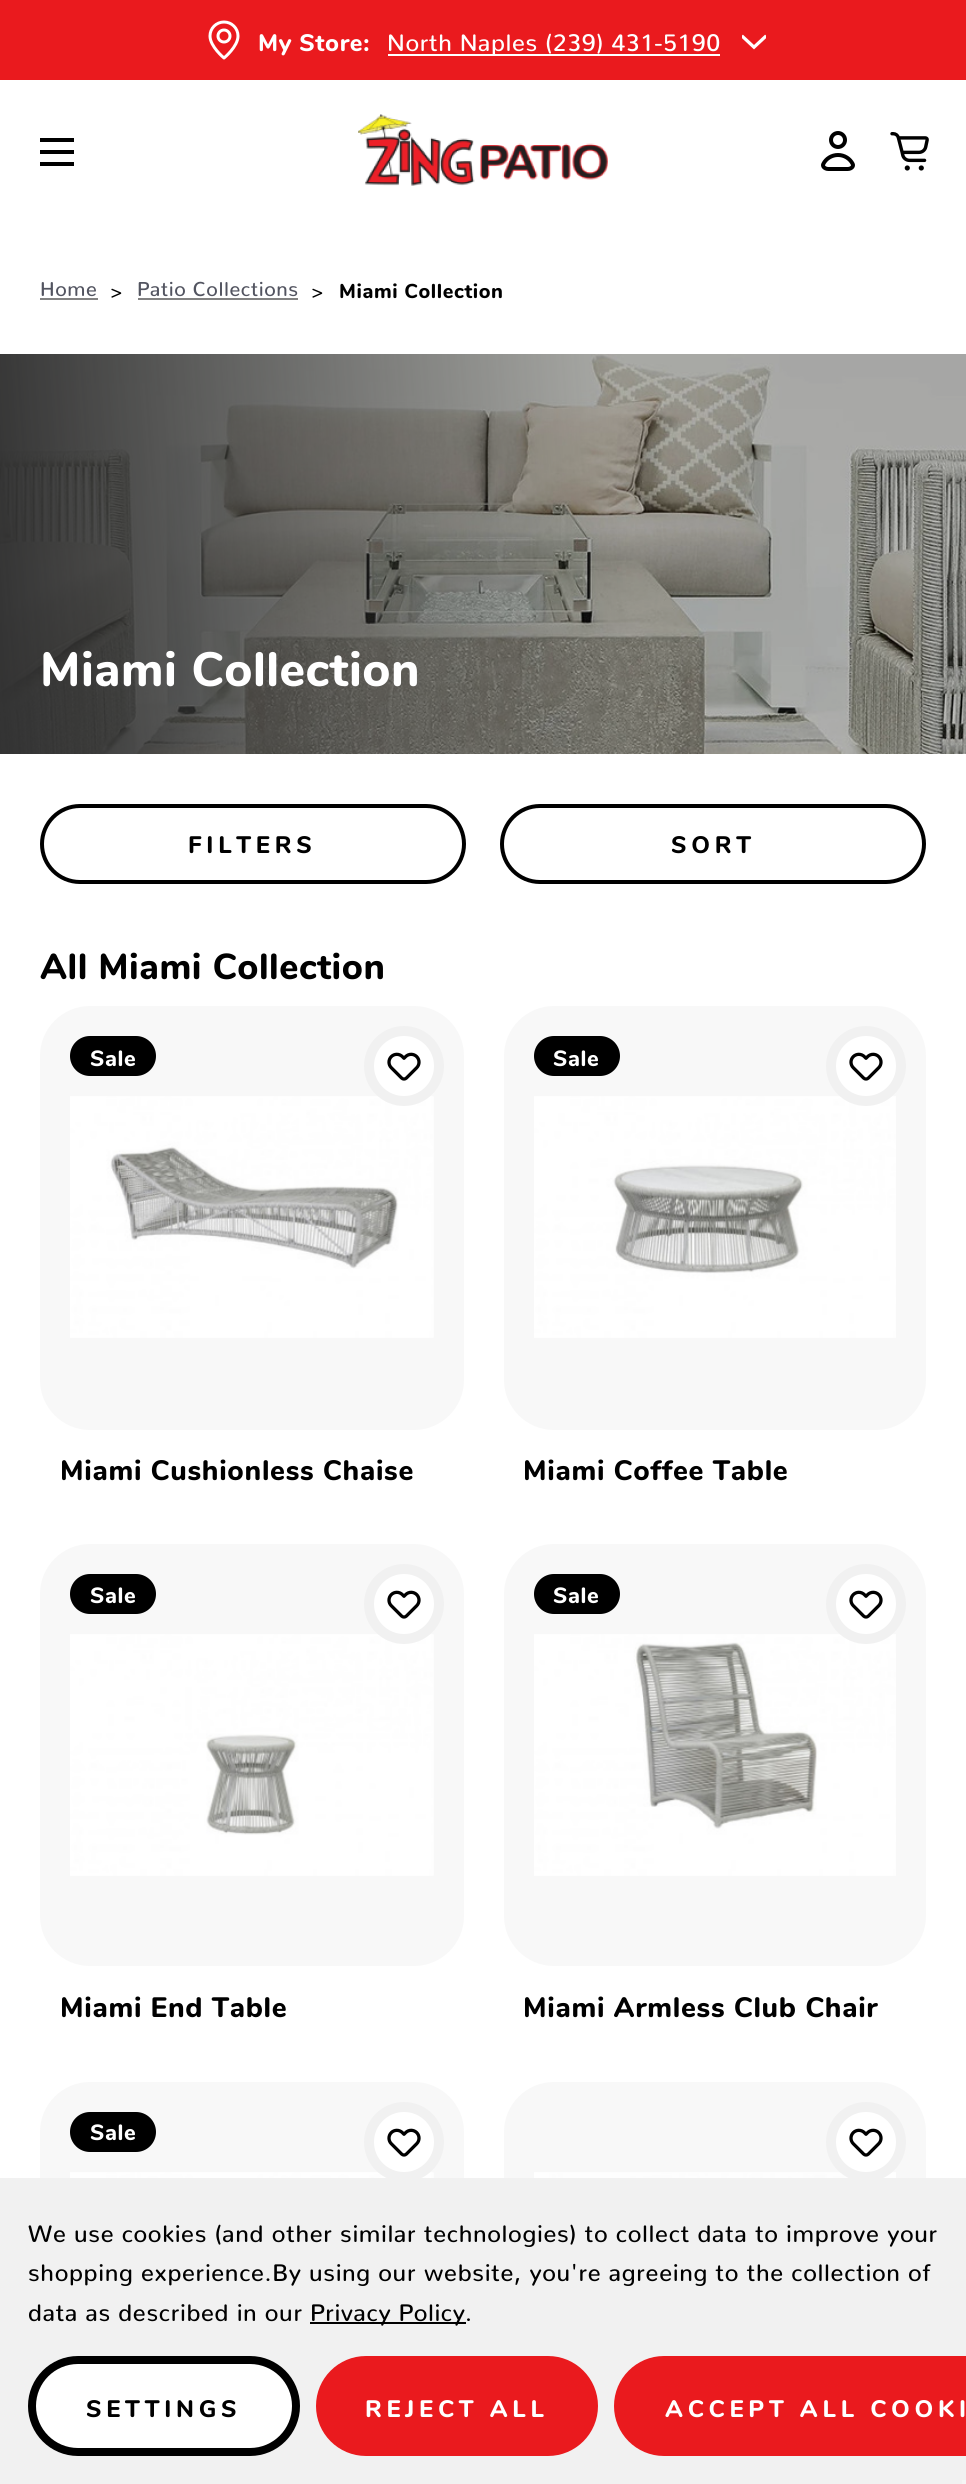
import math
import cairocffi as cairo

surface = cairo.ImageSurface(cairo.FORMAT_RGB24, 966, 2484)
ctx = cairo.Context(surface)
options = cairo.FontOptions()
options.set_hint_metrics(cairo.HINT_METRICS_OFF)
options.set_hint_style(cairo.HINT_STYLE_NONE)
ctx.set_font_options(options)
ctx.set_miter_limit(4)


def rgb(r, g, b):
    ctx.set_source_rgb(r / 255, g / 255, b / 255)


def face(family, size, italic, bold):
    ctx.select_font_face(family, cairo.FONT_SLANT_ITALIC if italic else cairo.FONT_SLANT_NORMAL, cairo.FONT_WEIGHT_BOLD if bold else cairo.FONT_WEIGHT_NORMAL)
    ctx.set_font_size(size)


def tracked(x, y, s, letter, word):
    ctx.move_to(x, y)
    for ch in s:
        ctx.show_text(ch)
        ctx.rel_move_to(letter + word * (ch == ' '), 0)


def rect(x, y, w, h):
    ctx.rectangle(x, y, w, h)
    ctx.fill()


def rrect(x, y, w, h, r):
    ctx.new_sub_path()
    for i, (u, v) in enumerate([(x + w - r, y + h - r), (x + r, y + h - r), (x + r, y + r), (x + w - r, y + r)]):
        ctx.arc(u, v, r, i * math.pi / 2, (i + 1) * math.pi / 2)
    ctx.close_path()


def image(path, x, y, w, h):
    ctx.save()
    ctx.set_source_surface(cairo.ImageSurface.create_from_png(path), x, y)
    ctx.rectangle(x, y, w, h)
    ctx.fill()
    ctx.restore()


rgb(255, 255, 255)
ctx.paint()
rgb(234, 26, 30)
rect(0, 0, 966, 80)
image('image0.png', 208, 20, 32, 40)
face('Nunito ExtraBold', 23.8, 0, 0)
rgb(255, 255, 255)
tracked(258, 51, 'My Store:', 0.6, 0)
rect(388, 54, 332, 2)
face('Nunito Medium', 23.8, 0, 0)
tracked(387, 51, 'North Naples (239) 431-5190', 0.6, 0)
image('image1.png', 742, 34, 24, 16)
rgb(0, 0, 0)
rect(40, 150, 34, 4)
rect(40, 138, 34, 4)
rect(40, 162, 34, 4)
image('image2.png', 358, 114, 250, 72)
image('image3.png', 821, 131, 34, 40)
image('image4.png', 890, 132, 39, 39)
face('Nunito Medium', 20, 0, 0)
rgb(82, 84, 96)
tracked(40, 296, 'Home', 0.6, 0)
rgb(130, 130, 130)
rect(40, 298, 58, 2)
rgb(0, 0, 0)
tracked(110, 298, '>', 0.6, 0)
rgb(82, 84, 96)
tracked(137, 296, 'Patio Collections', 0.6, 0)
rgb(130, 130, 130)
rect(138, 298, 160, 2)
rgb(0, 0, 0)
tracked(311, 298, '>', 0.6, 0)
face('Nunito ExtraBold', 20, 0, 0)
tracked(339, 298, 'Miami Collection', 0.6, 0)
image('image5.png', 0, 354, 966, 400)
face('Nunito ExtraBold', 48, 0, 0)
rgb(255, 255, 255)
tracked(40, 686, 'Miami Collection', 0.5, 0)
rrect(42, 806, 422, 76, 38)
rgb(0, 0, 0)
ctx.set_line_width(4)
ctx.stroke()
face('Nunito ExtraBold', 23.8, 0, 0)
tracked(188, 853, 'FILTERS', 4.75, 0)
rrect(502, 806, 422, 76, 38)
ctx.stroke()
tracked(671, 853, 'SORT', 4.75, 0)
face('Nunito ExtraBold', 36, 0, 0)
tracked(40, 979, 'All Miami Collection', 0.5, 0)
rgb(248, 248, 248)
rrect(40, 1006, 424, 424, 50)
ctx.fill()
rgb(0, 0, 0)
rrect(70, 1036, 86, 40, 20)
ctx.fill()
face('Nunito ExtraBold', 22, 0, 0)
rgb(255, 255, 255)
tracked(90, 1066, 'Sale', 0.6, 0)
image('image7.png', 70, 1096, 364, 242)
ctx.arc(404, 1066, 35, 0, 2 * math.pi)
ctx.fill_preserve()
rgb(241, 241, 241)
ctx.set_line_width(10)
ctx.stroke()
image('image6.png', 387, 1052, 34, 29)
face('Nunito ExtraBold', 28, 0, 0)
rgb(0, 0, 0)
tracked(60, 1480, 'Miami Cushionless Chaise', 0.7, 0)
rgb(248, 248, 248)
rrect(504, 1006, 422, 424, 50)
ctx.fill()
rgb(0, 0, 0)
rrect(534, 1036, 86, 40, 20)
ctx.fill()
face('Nunito ExtraBold', 22, 0, 0)
rgb(255, 255, 255)
tracked(553, 1066, 'Sale', 0.6, 0)
image('image8.png', 534, 1096, 362, 242)
ctx.arc(866, 1066, 35, 0, 2 * math.pi)
ctx.fill_preserve()
rgb(241, 241, 241)
ctx.stroke()
image('image6.png', 849, 1052, 34, 29)
face('Nunito ExtraBold', 28, 0, 0)
rgb(0, 0, 0)
tracked(523, 1480, 'Miami Coffee Table', 0.7, 0)
rgb(248, 248, 248)
rrect(40, 1544, 424, 422, 50)
ctx.fill()
rgb(0, 0, 0)
rrect(70, 1574, 86, 40, 20)
ctx.fill()
face('Nunito ExtraBold', 22, 0, 0)
rgb(255, 255, 255)
tracked(90, 1603, 'Sale', 0.6, 0)
image('image9.png', 70, 1634, 364, 242)
ctx.arc(404, 1604, 35, 0, 2 * math.pi)
ctx.fill_preserve()
rgb(241, 241, 241)
ctx.stroke()
image('image6.png', 387, 1590, 34, 29)
face('Nunito ExtraBold', 28, 0, 0)
rgb(0, 0, 0)
tracked(60, 2017, 'Miami End Table', 0.7, 0)
rgb(248, 248, 248)
rrect(504, 1544, 422, 422, 50)
ctx.fill()
rgb(0, 0, 0)
rrect(534, 1574, 86, 40, 20)
ctx.fill()
face('Nunito ExtraBold', 22, 0, 0)
rgb(255, 255, 255)
tracked(553, 1603, 'Sale', 0.6, 0)
image('image10.png', 534, 1634, 362, 242)
ctx.arc(866, 1604, 35, 0, 2 * math.pi)
ctx.fill_preserve()
rgb(241, 241, 241)
ctx.stroke()
image('image6.png', 849, 1590, 34, 29)
face('Nunito ExtraBold', 28, 0, 0)
rgb(0, 0, 0)
tracked(523, 2017, 'Miami Armless Club Chair', 0.7, 0)
rgb(248, 248, 248)
rrect(40, 2082, 424, 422, 50)
ctx.fill()
rgb(0, 0, 0)
rrect(70, 2112, 86, 40, 20)
ctx.fill()
face('Nunito ExtraBold', 22, 0, 0)
rgb(255, 255, 255)
tracked(90, 2140, 'Sale', 0.6, 0)
image('image11.png', 70, 2172, 364, 6)
ctx.arc(404, 2142, 35, 0, 2 * math.pi)
ctx.fill_preserve()
rgb(241, 241, 241)
ctx.stroke()
image('image6.png', 387, 2128, 34, 29)
rgb(248, 248, 248)
rrect(504, 2082, 422, 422, 50)
ctx.fill()
image('image12.png', 534, 2172, 362, 6)
rgb(255, 255, 255)
ctx.arc(866, 2142, 35, 0, 2 * math.pi)
ctx.fill_preserve()
rgb(241, 241, 241)
ctx.stroke()
image('image6.png', 849, 2128, 34, 29)
rect(0, 2178, 966, 306)
face('Nunito Medium', 23.8, 0, 0)
rgb(0, 0, 0)
tracked(28, 2242, 'We use cookies (and other similar technologies) to collect data to improve your', 0.7, 0)
tracked(28, 2281, 'shopping experience.By using our website, you\'re agreeing to the collection of', 0.7, 0)
tracked(28, 2321, 'data as described in our', 0.7, 0)
rect(310, 2322, 156, 2)
tracked(310, 2321, 'Privacy Policy', 0.6, 0)
tracked(465, 2321, '.', 0.7, 0)
rgb(255, 255, 255)
rrect(32, 2360, 264, 92, 46)
ctx.fill_preserve()
rgb(0, 0, 0)
ctx.set_line_width(8)
ctx.stroke()
face('Nunito ExtraBold', 23.8, 0, 0)
tracked(86, 2417, 'SETTINGS', 4.75, 0)
rgb(234, 26, 30)
rrect(316, 2356, 282, 100, 50)
ctx.fill()
rgb(255, 255, 255)
tracked(365, 2417, 'REJECT ALL', 4.75, 0)
rgb(234, 26, 30)
rrect(614, 2356, 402, 100, 50)
ctx.fill()
rgb(255, 255, 255)
tracked(665, 2417, 'ACCEPT ALL COOKI', 4.75, 0)
rgb(245, 245, 245)
rect(962, 2480, 4, 4)
surface.write_to_png('render.png')
